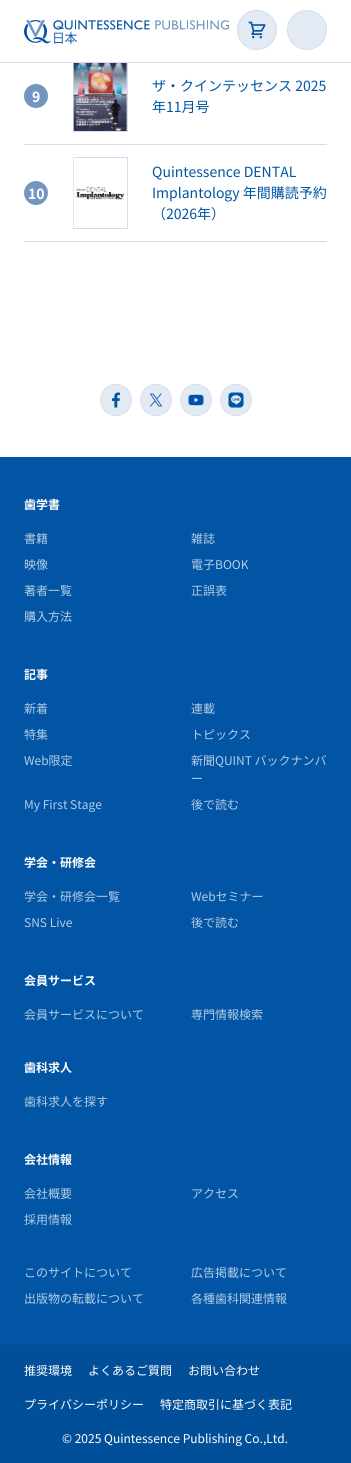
import math
import cairocffi as cairo

surface = cairo.ImageSurface(cairo.FORMAT_RGB24, 351, 1463)
ctx = cairo.Context(surface)
options = cairo.FontOptions()
options.set_hint_metrics(cairo.HINT_METRICS_OFF)
options.set_hint_style(cairo.HINT_STYLE_NONE)
ctx.set_font_options(options)
ctx.set_miter_limit(4)


def rgb(r, g, b):
    ctx.set_source_rgb(r / 255, g / 255, b / 255)


def face(family, size, italic, bold):
    ctx.select_font_face(family, cairo.FONT_SLANT_ITALIC if italic else cairo.FONT_SLANT_NORMAL, cairo.FONT_WEIGHT_BOLD if bold else cairo.FONT_WEIGHT_NORMAL)
    ctx.set_font_size(size)


def label(x, y, s):
    ctx.move_to(x, y)
    ctx.show_text(s)


def rect(x, y, w, h):
    ctx.rectangle(x, y, w, h)
    ctx.fill()


def image(path, x, y, w, h):
    ctx.save()
    ctx.set_source_surface(cairo.ImageSurface.create_from_png(path), x, y)
    ctx.rectangle(x, y, w, h)
    ctx.fill()
    ctx.restore()


rgb(255, 255, 255)
ctx.paint()
ctx.rectangle(73.5, 60.5, 54, 71)
rgb(210, 222, 236)
ctx.set_line_width(1)
ctx.stroke()
rgb(255, 255, 255)
rect(73, 60, 55, 2)
rgb(210, 222, 236)
rect(0, 62, 351, 1)
image('image0.png', 24, 20, 205, 24)
rgb(227, 234, 243)
ctx.arc(257, 30, 19.5, 0, 2 * math.pi)
ctx.fill_preserve()
rgb(210, 222, 236)
ctx.stroke()
image('image1.png', 248, 21, 18, 18)
rgb(227, 234, 243)
ctx.arc(307, 30, 19.5, 0, 2 * math.pi)
ctx.fill_preserve()
rgb(210, 222, 236)
ctx.stroke()
rect(24, 144, 303, 1)
rgb(115, 150, 193)
ctx.arc(36, 96, 12, 0, 2 * math.pi)
ctx.fill()
face('Noto Sans JP', 14, 0, 1)
rgb(255, 255, 255)
label(32, 102, '9')
image('image2.png', 73, 63, 54, 68)
face('Noto Sans JP', 14, 0, 0)
rgb(1, 85, 164)
label(152, 91, 'ザ・クインテッセンス 2025')
label(152, 112, '年11月号')
rgb(210, 222, 236)
rect(24, 241, 303, 1)
rgb(115, 150, 193)
ctx.new_path()
ctx.arc(36, 193, 12, 0, 2 * math.pi)
ctx.fill()
face('Noto Sans JP', 14, 0, 1)
rgb(255, 255, 255)
label(28, 199, '10')
ctx.rectangle(73.5, 157.5, 54, 71)
rgb(210, 222, 236)
ctx.stroke()
image('image3.png', 73, 158, 52, 70)
face('Noto Sans JP', 14, 0, 0)
rgb(1, 85, 164)
label(152, 177, 'Quintessence DENTAL')
label(152, 198, 'Implantology 年間購読予約')
label(152, 219, '（2026年）')
rgb(227, 234, 243)
ctx.new_path()
ctx.arc(116, 400, 15.5, 0, 2 * math.pi)
ctx.fill_preserve()
rgb(210, 222, 236)
ctx.stroke()
image('image4.png', 112, 392, 8, 16)
rgb(227, 234, 243)
ctx.arc(156, 400, 15.5, 0, 2 * math.pi)
ctx.fill_preserve()
rgb(210, 222, 236)
ctx.stroke()
image('image5.png', 149, 393, 14, 14)
rgb(227, 234, 243)
ctx.arc(196, 400, 15.5, 0, 2 * math.pi)
ctx.fill_preserve()
rgb(210, 222, 236)
ctx.stroke()
image('image6.png', 188, 394, 16, 12)
rgb(227, 234, 243)
ctx.arc(236, 400, 15.5, 0, 2 * math.pi)
ctx.fill_preserve()
rgb(210, 222, 236)
ctx.stroke()
image('image7.png', 228, 392, 16, 16)
rgb(1, 85, 164)
rect(0, 457, 351, 888)
face('Noto Sans JP', 12, 0, 1)
rgb(255, 255, 255)
label(24, 509, '歯学書')
face('Noto Sans JP', 12, 0, 0)
rgb(181, 204, 229)
label(24, 543, '書籍')
label(191, 543, '雑誌')
label(24, 569, '映像')
label(191, 569, '電子BOOK')
label(24, 595, '著者一覧')
label(191, 595, '正誤表')
label(24, 621, '購入方法')
face('Noto Sans JP', 12, 0, 1)
rgb(255, 255, 255)
label(24, 679, '記事')
face('Noto Sans JP', 12, 0, 0)
rgb(181, 204, 229)
label(24, 713, '新着')
label(191, 713, '連載')
label(24, 739, '特集')
label(191, 739, 'トピックス')
label(24, 765, 'Web限定')
label(191, 765, '新聞QUINT バックナンバ')
label(191, 783, 'ー')
label(24, 809, 'My First Stage')
label(191, 809, '後で読む')
face('Noto Sans JP', 12, 0, 1)
rgb(255, 255, 255)
label(24, 867, '学会・研修会')
face('Noto Sans JP', 12, 0, 0)
rgb(181, 204, 229)
label(24, 901, '学会・研修会一覧')
label(191, 901, 'Webセミナー')
label(24, 927, 'SNS Live')
label(191, 927, '後で読む')
face('Noto Sans JP', 12, 0, 1)
rgb(255, 255, 255)
label(24, 985, '会員サービス')
face('Noto Sans JP', 12, 0, 0)
rgb(181, 204, 229)
label(24, 1019, '会員サービスについて')
label(191, 1019, '専門情報検索')
face('Noto Sans JP', 12, 0, 1)
rgb(255, 255, 255)
label(24, 1072, '歯科求人')
face('Noto Sans JP', 12, 0, 0)
rgb(181, 204, 229)
label(24, 1106, '歯科求人を探す')
face('Noto Sans JP', 12, 0, 1)
rgb(255, 255, 255)
label(24, 1164, '会社情報')
face('Noto Sans JP', 12, 0, 0)
rgb(181, 204, 229)
label(24, 1198, '会社概要')
label(191, 1198, 'アクセス')
label(24, 1224, '採用情報')
label(24, 1277, 'このサイトについて')
label(191, 1277, '広告掲載について')
label(24, 1303, '出版物の転載について')
label(191, 1303, '各種歯科関連情報')
rgb(2, 79, 153)
rect(0, 1345, 351, 118)
rgb(255, 255, 255)
label(24, 1375, '推奨環境')
label(88, 1375, 'よくあるご質問')
label(188, 1375, 'お問い合わせ')
label(24, 1409, 'プライバシーポリシー')
label(160, 1409, '特定商取引に基づく表記')
label(62, 1443, '© 2025 Quintessence Publishing Co.,Ltd.')
surface.write_to_png('render.png')
